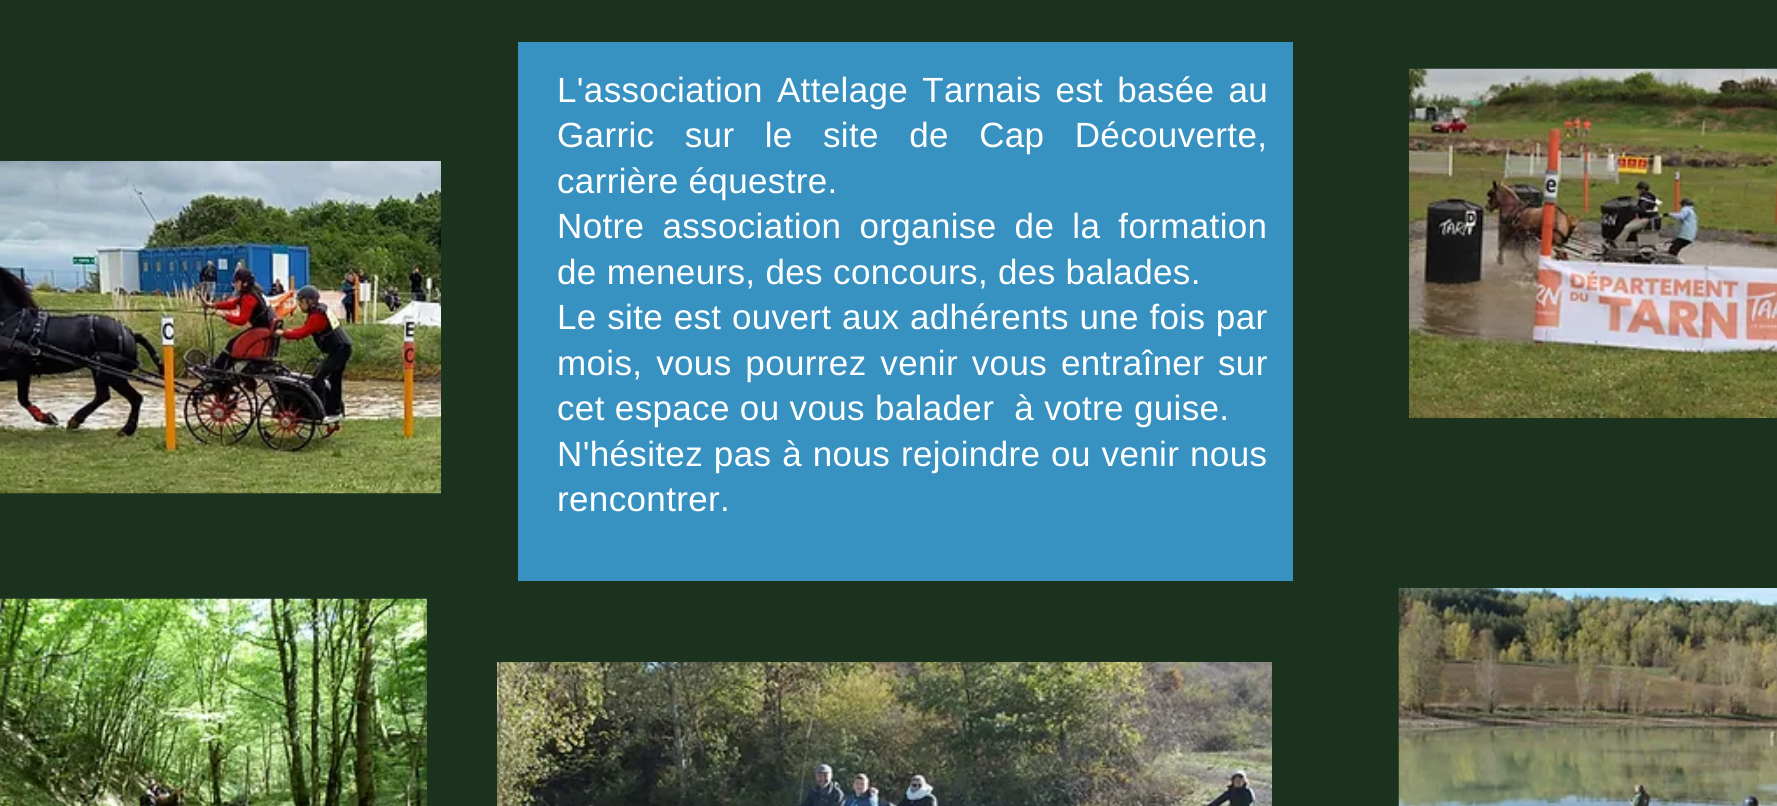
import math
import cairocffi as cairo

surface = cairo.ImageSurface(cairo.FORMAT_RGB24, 1777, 806)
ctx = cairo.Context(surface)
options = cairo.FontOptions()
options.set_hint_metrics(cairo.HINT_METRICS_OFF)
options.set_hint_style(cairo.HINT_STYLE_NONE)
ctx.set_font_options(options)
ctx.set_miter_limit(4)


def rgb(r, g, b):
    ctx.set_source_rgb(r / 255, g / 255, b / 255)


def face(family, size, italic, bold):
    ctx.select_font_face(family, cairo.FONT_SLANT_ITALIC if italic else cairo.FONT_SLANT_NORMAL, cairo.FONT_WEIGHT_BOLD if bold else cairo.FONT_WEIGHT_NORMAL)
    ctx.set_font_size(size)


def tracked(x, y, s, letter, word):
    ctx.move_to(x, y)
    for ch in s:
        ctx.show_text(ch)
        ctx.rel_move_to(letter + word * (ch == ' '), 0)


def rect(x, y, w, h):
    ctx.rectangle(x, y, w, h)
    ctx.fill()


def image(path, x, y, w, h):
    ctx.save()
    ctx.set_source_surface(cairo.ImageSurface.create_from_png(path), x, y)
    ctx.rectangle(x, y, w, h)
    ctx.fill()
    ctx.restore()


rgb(27, 50, 30)
ctx.paint()
image('image0.png', 0, 161, 441, 333)
rgb(55, 146, 194)
rect(518, 42, 775, 539)
face('Liberation Sans', 35, 0, 0)
rgb(255, 255, 255)
tracked(557, 102, 'L\'association Attelage Tarnais est basée au', 0.35, 4)
tracked(557, 147, 'Garric sur le site de Cap Découverte,', 0.35, 20.25)
tracked(557, 193, 'carrière équestre.', 0.35, 0)
tracked(557, 238, 'Notre association organise de la formation', 0.35, 8)
tracked(557, 284, 'de meneurs, des concours, des balades.', 0.35, 0)
tracked(557, 329, 'Le site est ouvert aux adhérents une fois par', 0.35, 0.5)
tracked(557, 375, 'mois, vous pourrez venir vous entraîner sur', 0.35, 3.75)
tracked(557, 420, 'cet espace ou vous balader  à votre guise.', 0.35, 0)
tracked(557, 466, 'N\'hésitez pas à nous rejoindre ou venir nous', 0.35, 0.75)
tracked(557, 511, 'rencontrer.', 0.35, 0)
image('image1.png', 1409, 68, 368, 350)
image('image2.png', 0, 598, 427, 208)
image('image3.png', 497, 662, 775, 144)
image('image4.png', 1398, 588, 379, 218)
surface.write_to_png('render.png')
